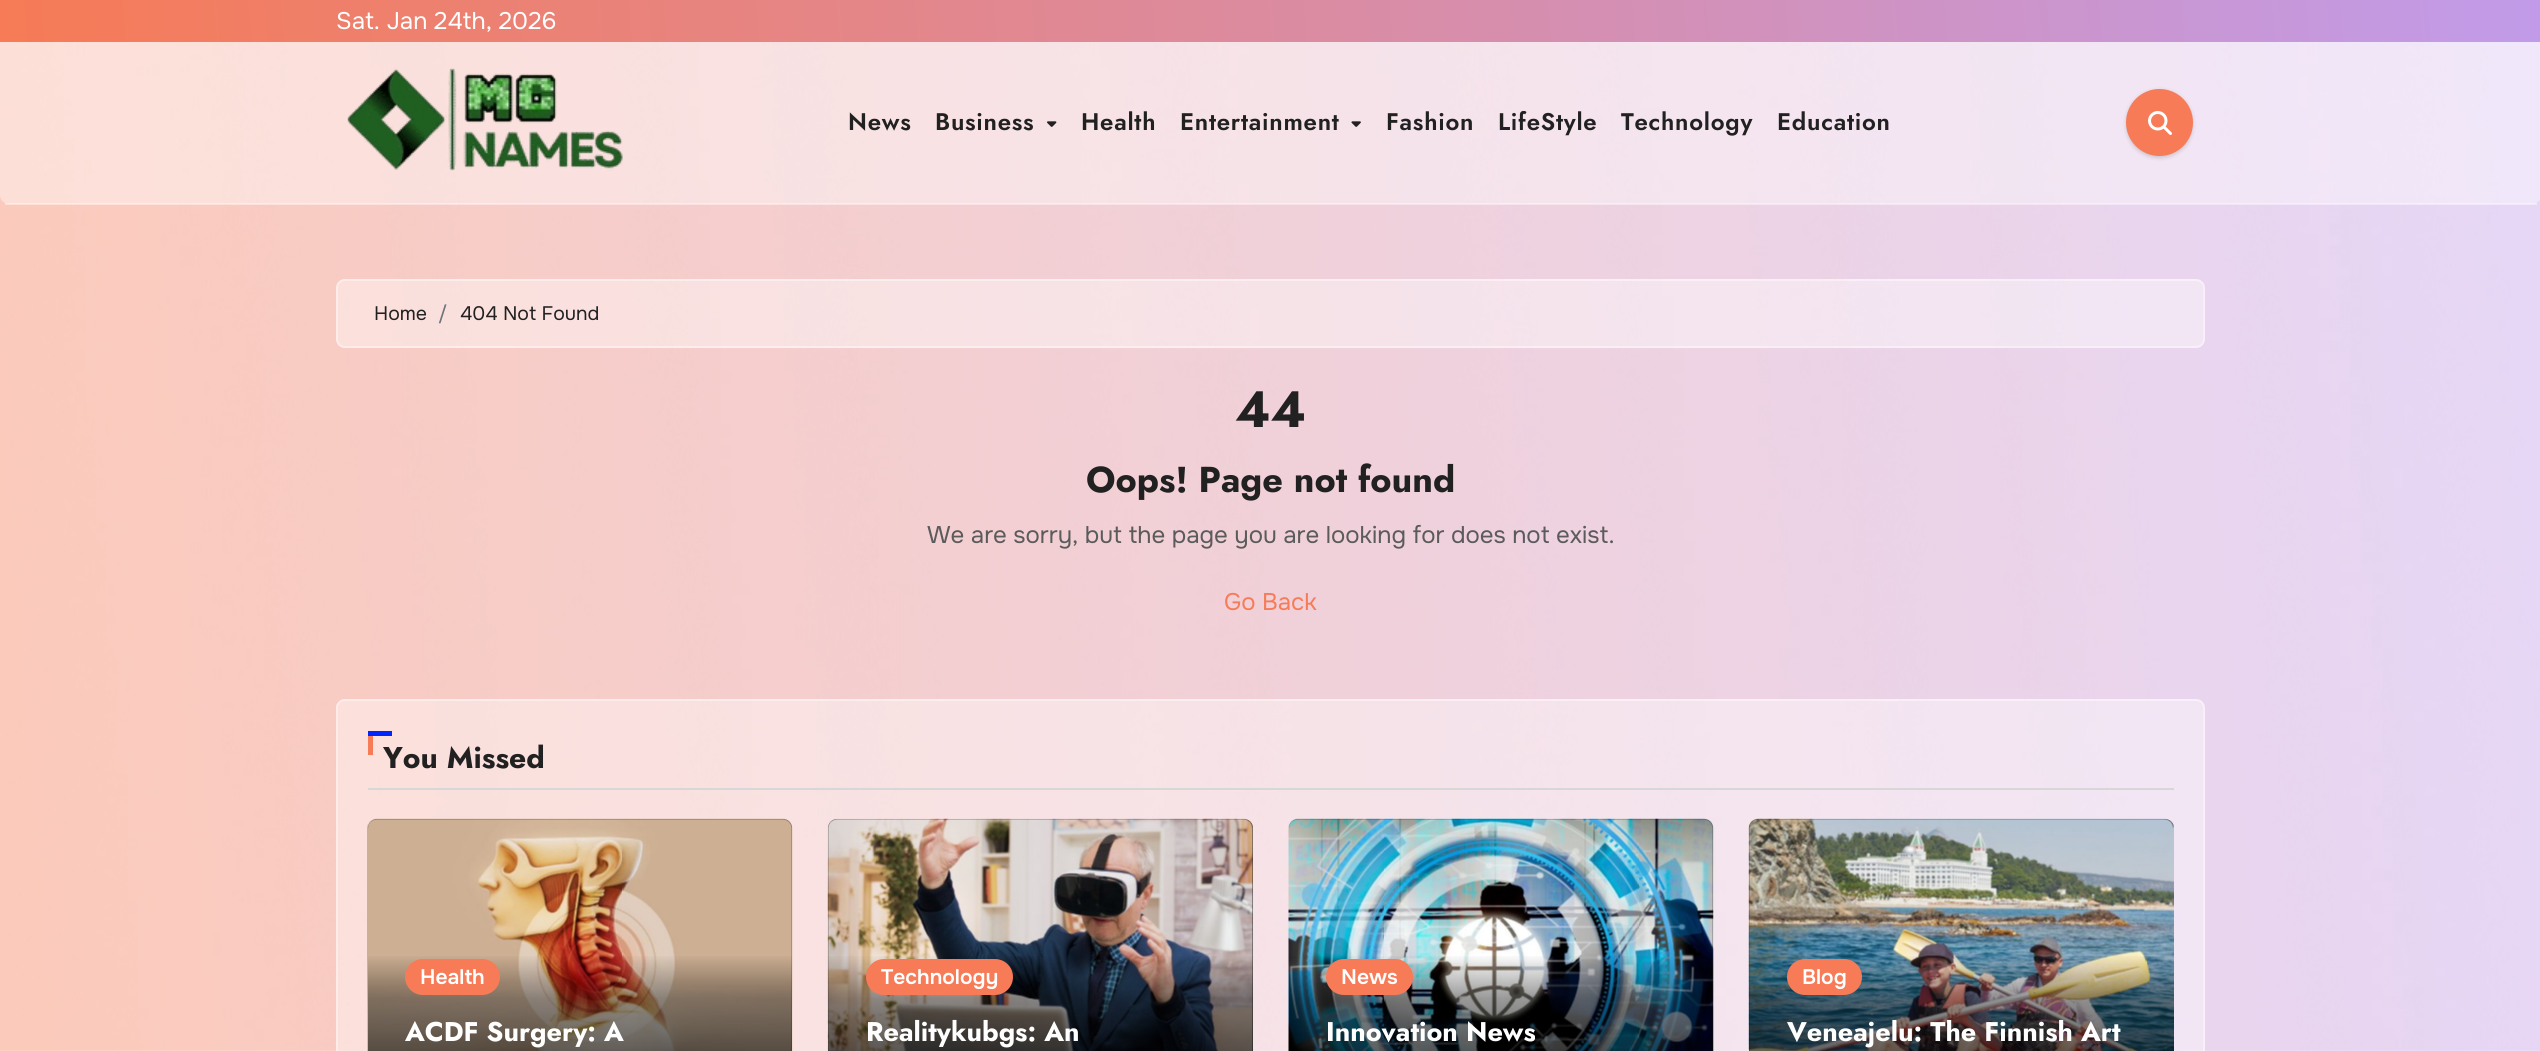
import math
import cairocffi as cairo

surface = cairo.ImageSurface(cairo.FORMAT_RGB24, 2540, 1051)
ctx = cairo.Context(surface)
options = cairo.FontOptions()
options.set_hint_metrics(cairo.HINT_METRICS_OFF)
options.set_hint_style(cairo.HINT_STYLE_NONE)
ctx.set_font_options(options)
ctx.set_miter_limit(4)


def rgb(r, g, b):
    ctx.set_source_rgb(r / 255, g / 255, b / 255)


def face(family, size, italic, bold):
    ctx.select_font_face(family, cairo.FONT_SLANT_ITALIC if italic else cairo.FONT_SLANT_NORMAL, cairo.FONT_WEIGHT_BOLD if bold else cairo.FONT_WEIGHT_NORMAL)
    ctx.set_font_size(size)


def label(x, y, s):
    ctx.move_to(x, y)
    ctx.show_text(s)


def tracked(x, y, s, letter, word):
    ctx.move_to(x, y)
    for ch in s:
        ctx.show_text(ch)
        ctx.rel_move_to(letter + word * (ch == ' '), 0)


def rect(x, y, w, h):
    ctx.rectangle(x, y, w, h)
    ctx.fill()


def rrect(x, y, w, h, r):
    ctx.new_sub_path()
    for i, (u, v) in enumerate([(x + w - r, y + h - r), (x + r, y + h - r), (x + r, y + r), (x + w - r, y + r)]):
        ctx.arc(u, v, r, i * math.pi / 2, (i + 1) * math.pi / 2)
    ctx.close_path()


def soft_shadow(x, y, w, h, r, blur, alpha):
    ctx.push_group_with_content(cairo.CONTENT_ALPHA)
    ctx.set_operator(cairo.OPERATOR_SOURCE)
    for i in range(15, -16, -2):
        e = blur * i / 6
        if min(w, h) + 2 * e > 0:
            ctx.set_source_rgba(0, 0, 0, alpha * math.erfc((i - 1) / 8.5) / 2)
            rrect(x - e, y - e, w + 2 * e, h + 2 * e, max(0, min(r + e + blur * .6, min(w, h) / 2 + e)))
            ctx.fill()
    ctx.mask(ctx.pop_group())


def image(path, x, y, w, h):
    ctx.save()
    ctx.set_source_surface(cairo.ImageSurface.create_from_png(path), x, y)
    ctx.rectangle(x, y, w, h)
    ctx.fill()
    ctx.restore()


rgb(255, 255, 255)
ctx.paint()
image('image0.png', 0, 42, 2540, 1009)
ctx.set_source_rgba(1, 1, 1, 0.4)
rrect(0, 0, 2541, 204, 9)
ctx.fill()
rect(5, 203, 2532, 2)
gradient = cairo.LinearGradient(7.8, 131, 2533, -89)
gradient.add_color_stop_rgba(0, 0.965, 0.482, 0.337, 1)
gradient.add_color_stop_rgba(1, 0.757, 0.608, 0.914, 1)
ctx.set_source(gradient)
rect(0, 0, 2540, 42)
face('Onest', 24, 0, 0)
rgb(255, 255, 255)
label(336, 29, 'Sat. Jan 24th, 2026')
image('image1.png', 347, 68, 276, 103)
face('Jost SemiBold', 24, 0, 0)
rgb(33, 33, 33)
tracked(848, 130, 'News', 0.75, 0)
tracked(935, 130, 'Business', 0.75, 0)
image('image2.png', 1047, 121, 10, 6)
tracked(1081, 130, 'Health', 0.75, 0)
tracked(1180, 130, 'Entertainment', 0.75, 0)
image('image3.png', 1351, 121, 10, 6)
tracked(1386, 130, 'Fashion', 0.75, 0)
tracked(1498, 130, 'LifeStyle', 0.75, 0)
tracked(1621, 130, 'Technology', 0.75, 0)
tracked(1777, 130, 'Education', 0.75, 0)
rgb(0, 0, 0)
soft_shadow(2126, 90, 67, 68, 33.5, 2, 0.15)
rgb(246, 123, 86)
ctx.arc(2159.5, 122.5, 33.5, 0, 2 * math.pi)
ctx.fill()
image('image4.png', 2148, 111, 24, 24)
ctx.set_source_rgba(1, 1, 1, 0.4)
rrect(336, 279, 1869, 69, 9)
ctx.fill()
rrect(337, 280, 1867, 67, 8)
ctx.stroke()
face('Onest', 19.5, 0, 0)
rgb(33, 33, 33)
label(374, 320, 'Home')
rgb(108, 117, 125)
label(438, 320, '/')
rgb(33, 33, 33)
label(460, 320, '404 Not Found')
face('Jost', 51, 0, 1)
label(1235, 427, '44')
face('Jost', 36, 0, 1)
label(1086, 492, 'Oops! Page not found')
face('Onest', 24, 0, 0)
rgb(91, 91, 91)
label(927, 543, 'We are sorry, but the page you are looking for does not exist.')
rgb(246, 123, 86)
label(1224, 610, 'Go Back')
ctx.set_source_rgba(1, 1, 1, 0.4)
rrect(336, 699, 1869, 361, 9)
ctx.fill()
rrect(337, 700, 1867, 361, 8)
ctx.stroke()
rgb(215, 215, 215)
rect(368, 788, 1806, 2)
rgb(246, 123, 86)
rect(368, 731, 5, 24)
rgb(0, 37, 255)
rect(368, 731, 24, 5)
face('Jost', 30, 0, 1)
rgb(33, 33, 33)
label(383, 768, 'You Missed')
rgb(51, 51, 51)
rrect(368, 819, 424, 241, 9)
ctx.fill()
image('image5.png', 367, 818, 426, 233)
gradient = cairo.LinearGradient(580, 819, 580, 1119)
gradient.add_color_stop_rgba(0, 1, 1, 1, 0)
gradient.add_color_stop_rgba(0.45, 0, 0, 0, 0)
gradient.add_color_stop_rgba(0.6, 0, 0, 0, 0.4)
gradient.add_color_stop_rgba(1, 0, 0, 0, 0.85)
ctx.set_source(gradient)
rect(368, 956, 424, 95)
rgb(246, 123, 86)
rrect(405, 959, 95, 36, 18)
ctx.fill()
face('Onest SemiBold', 21, 0, 0)
rgb(255, 255, 255)
label(420, 984, 'Health')
face('Jost', 27, 0, 1)
label(405, 1041, 'ACDF Surgery: A')
rgb(51, 51, 51)
rrect(828, 819, 425, 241, 9)
ctx.fill()
image('image6.png', 827, 818, 426, 233)
gradient = cairo.LinearGradient(1040, 819, 1040, 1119)
gradient.add_color_stop_rgba(0, 1, 1, 1, 0)
gradient.add_color_stop_rgba(0.45, 0, 0, 0, 0)
gradient.add_color_stop_rgba(0.6, 0, 0, 0, 0.4)
gradient.add_color_stop_rgba(1, 0, 0, 0, 0.85)
ctx.set_source(gradient)
rect(828, 956, 425, 95)
rgb(246, 123, 86)
rrect(866, 959, 147, 36, 18)
ctx.fill()
face('Onest SemiBold', 21, 0, 0)
rgb(255, 255, 255)
label(881, 984, 'Technology')
face('Jost', 27, 0, 1)
label(866, 1041, 'Realitykubgs: An')
rgb(51, 51, 51)
rrect(1289, 819, 424, 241, 9)
ctx.fill()
image('image7.png', 1288, 818, 426, 233)
gradient = cairo.LinearGradient(1501, 819, 1501, 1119)
gradient.add_color_stop_rgba(0, 1, 1, 1, 0)
gradient.add_color_stop_rgba(0.45, 0, 0, 0, 0)
gradient.add_color_stop_rgba(0.6, 0, 0, 0, 0.4)
gradient.add_color_stop_rgba(1, 0, 0, 0, 0.85)
ctx.set_source(gradient)
rect(1289, 956, 424, 95)
rgb(246, 123, 86)
rrect(1326, 959, 87, 36, 18)
ctx.fill()
face('Onest SemiBold', 21, 0, 0)
rgb(255, 255, 255)
label(1341, 984, 'News')
face('Jost', 27, 0, 1)
label(1326, 1041, 'Innovation News')
rgb(51, 51, 51)
rrect(1749, 819, 425, 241, 9)
ctx.fill()
image('image8.png', 1748, 818, 426, 233)
gradient = cairo.LinearGradient(1961, 819, 1961, 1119)
gradient.add_color_stop_rgba(0, 1, 1, 1, 0)
gradient.add_color_stop_rgba(0.45, 0, 0, 0, 0)
gradient.add_color_stop_rgba(0.6, 0, 0, 0, 0.4)
gradient.add_color_stop_rgba(1, 0, 0, 0, 0.85)
ctx.set_source(gradient)
rect(1749, 956, 425, 95)
rgb(246, 123, 86)
rrect(1787, 959, 75, 36, 18)
ctx.fill()
face('Onest SemiBold', 21, 0, 0)
rgb(255, 255, 255)
label(1802, 984, 'Blog')
face('Jost', 27, 0, 1)
label(1787, 1041, 'Veneajelu: The Finnish Art')
surface.write_to_png('render.png')
